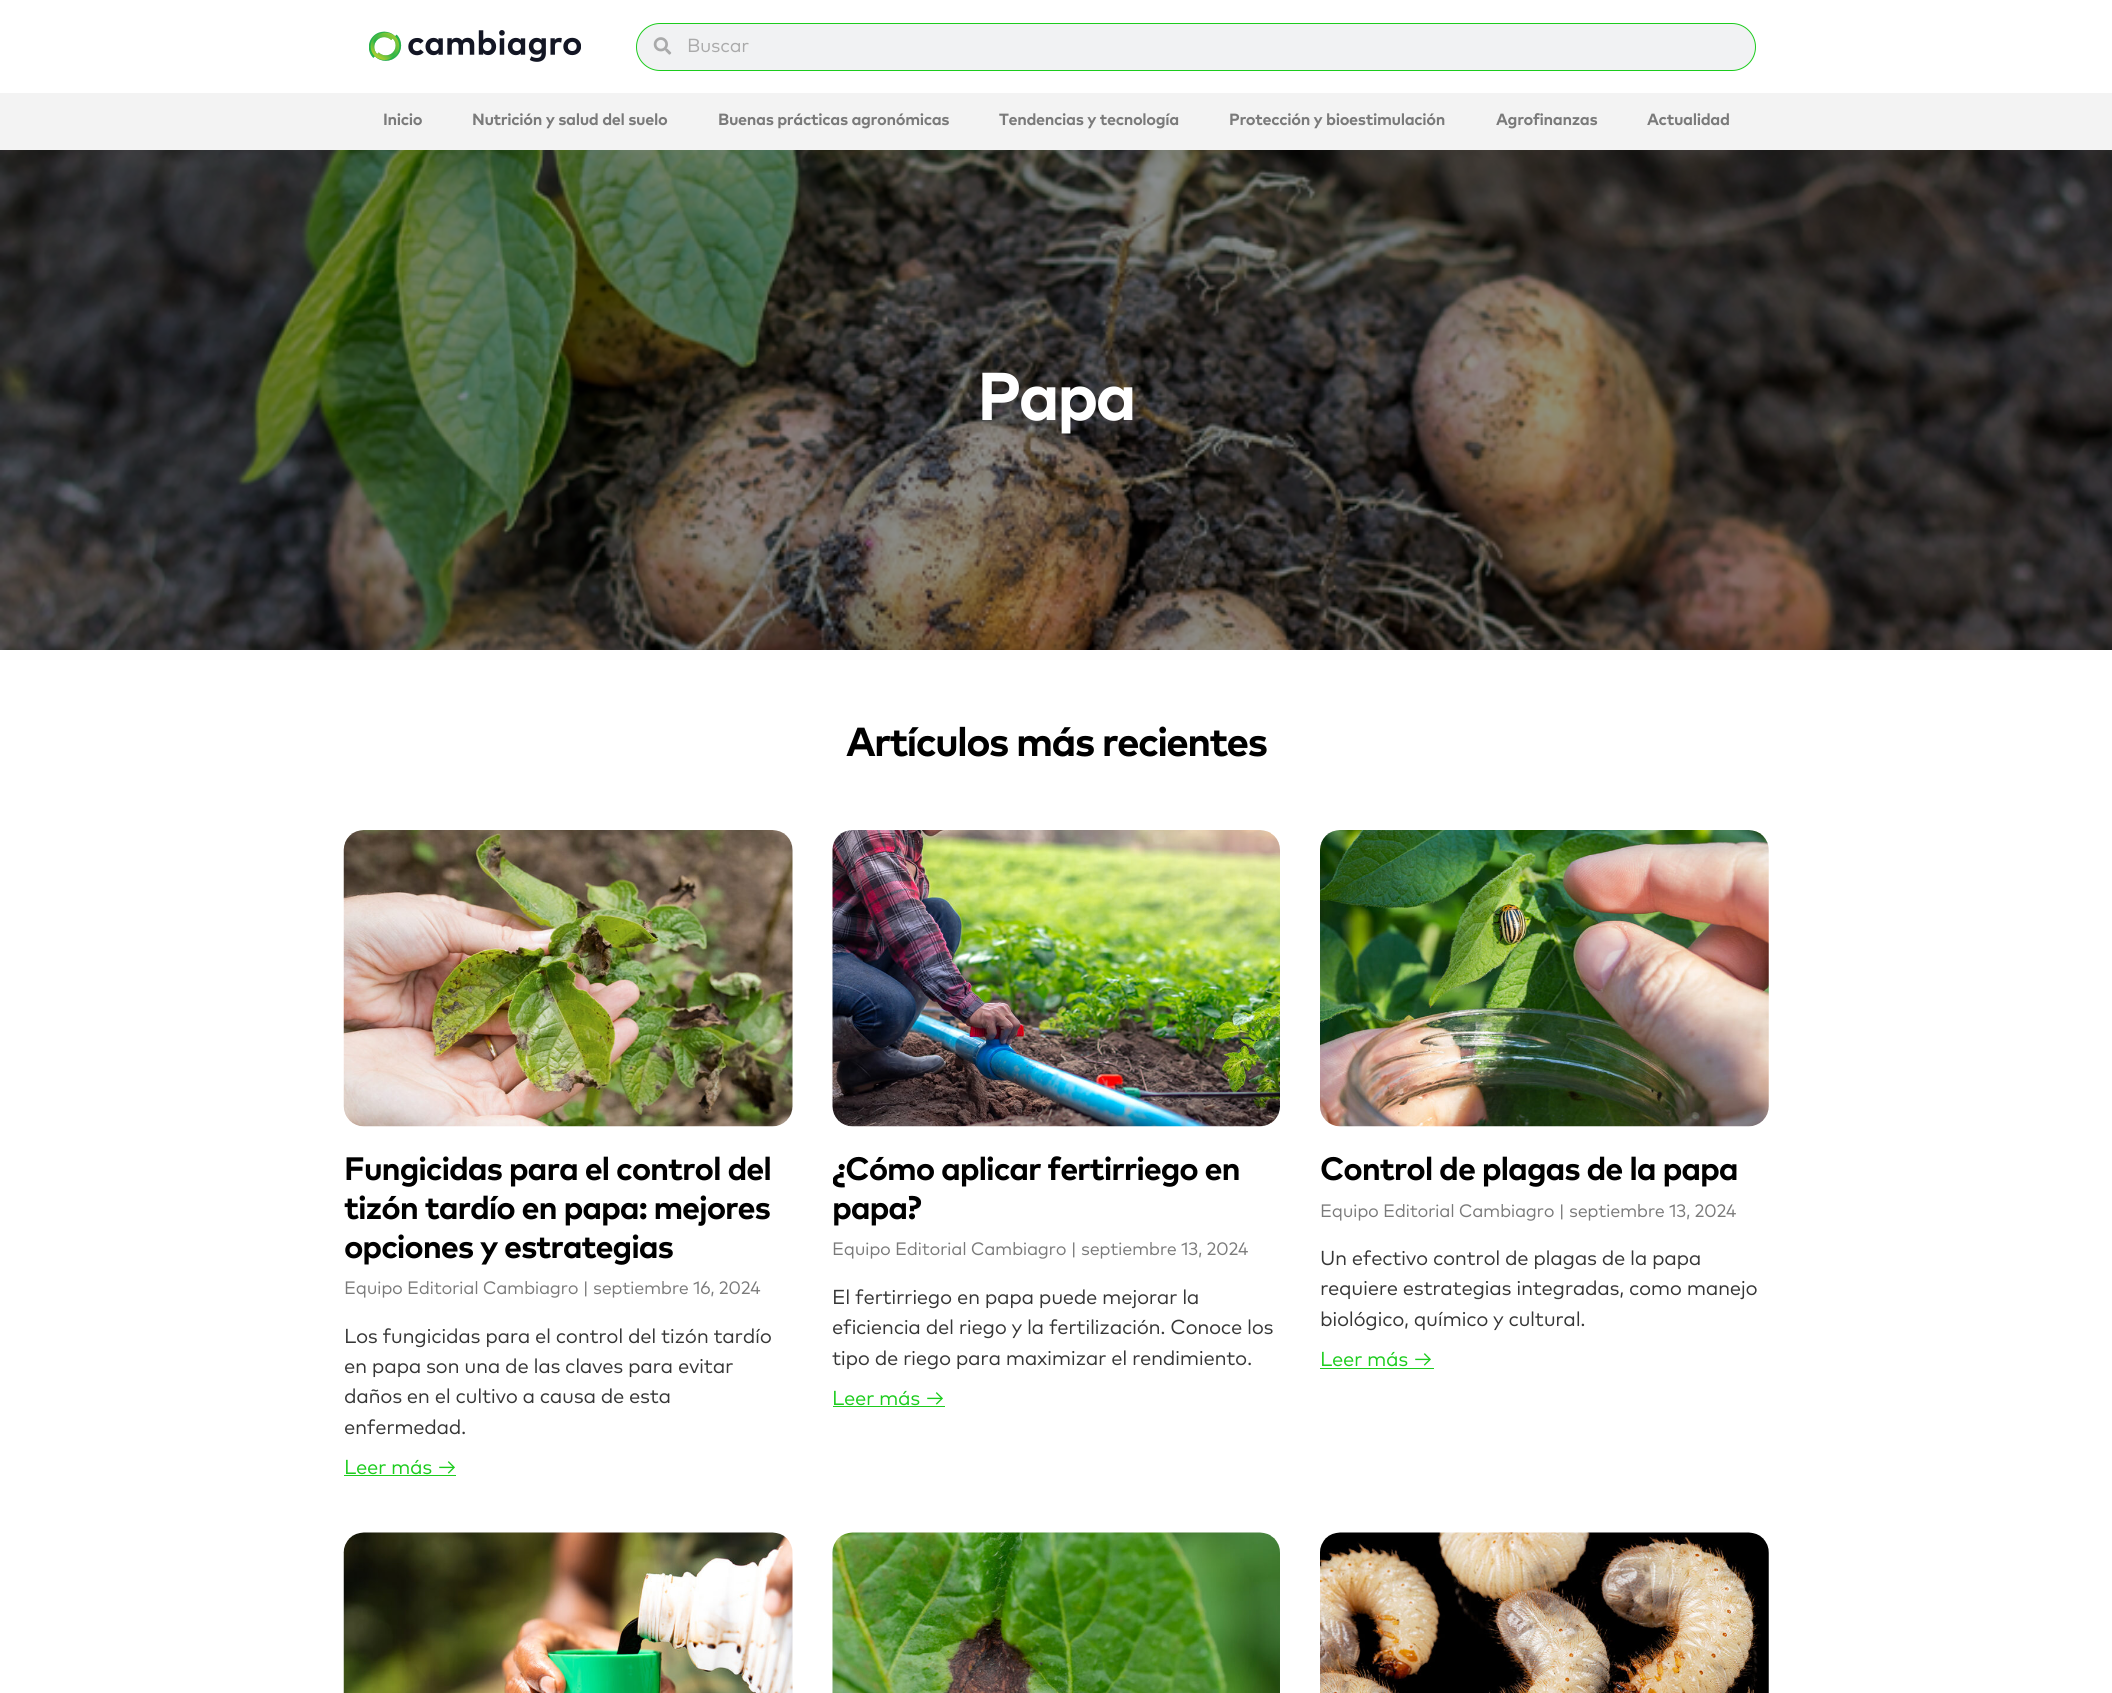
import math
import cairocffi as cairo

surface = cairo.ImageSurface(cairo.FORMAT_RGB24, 2112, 1693)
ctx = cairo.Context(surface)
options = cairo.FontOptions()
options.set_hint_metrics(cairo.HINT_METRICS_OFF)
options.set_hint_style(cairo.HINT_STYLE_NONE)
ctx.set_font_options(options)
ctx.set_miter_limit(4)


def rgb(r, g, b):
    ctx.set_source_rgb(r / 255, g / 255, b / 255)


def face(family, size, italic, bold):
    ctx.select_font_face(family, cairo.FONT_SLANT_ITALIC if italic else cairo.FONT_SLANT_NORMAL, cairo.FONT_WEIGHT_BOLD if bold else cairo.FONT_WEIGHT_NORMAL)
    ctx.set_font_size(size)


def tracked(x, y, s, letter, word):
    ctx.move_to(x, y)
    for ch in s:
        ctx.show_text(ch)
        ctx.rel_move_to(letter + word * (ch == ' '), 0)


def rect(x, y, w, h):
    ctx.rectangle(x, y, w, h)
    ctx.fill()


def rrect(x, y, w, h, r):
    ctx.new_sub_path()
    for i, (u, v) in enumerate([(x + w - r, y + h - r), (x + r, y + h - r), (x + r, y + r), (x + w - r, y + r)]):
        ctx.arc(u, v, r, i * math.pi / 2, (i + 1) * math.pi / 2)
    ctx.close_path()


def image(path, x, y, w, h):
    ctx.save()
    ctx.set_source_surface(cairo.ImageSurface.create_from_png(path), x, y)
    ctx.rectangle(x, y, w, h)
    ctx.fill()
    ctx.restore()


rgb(255, 255, 255)
ctx.paint()
image('image0.png', 369, 30, 212, 32)
rgb(241, 242, 243)
rrect(636.5, 23.5, 1119, 47, 23.5)
ctx.fill_preserve()
rgb(28, 204, 29)
ctx.set_line_width(1)
ctx.stroke()
image('image1.png', 653, 37, 19, 18)
face('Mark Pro', 19, 0, 0)
rgb(170, 170, 170)
tracked(687, 52, 'Buscar', -0.25, 0)
rgb(243, 243, 243)
rect(0, 93, 2112, 57)
face('Mark Pro', 16.25, 0, 1)
rgb(122, 122, 122)
tracked(383, 125, 'Inicio', -0.35, 0)
tracked(472, 125, 'Nutrición y salud del suelo', -0.35, 0)
tracked(718, 125, 'Buenas prácticas agronómicas', -0.35, 0)
tracked(999, 125, 'Tendencias y tecnología', -0.35, 0)
tracked(1229, 125, 'Protección y bioestimulación', -0.35, 0)
tracked(1496, 125, 'Agrofinanzas', -0.35, 0)
tracked(1647, 125, 'Actualidad', -0.35, 0)
image('image2.png', 0, 150, 2112, 500)
face('Mark Pro', 67.5, 0, 1)
rgb(255, 255, 255)
tracked(977, 420, 'Papa', -3, 0)
face('Mark Pro', 40.5, 0, 1)
rgb(0, 0, 0)
tracked(846, 756, 'Artículos más recientes', -1.7, 0)
image('image3.png', 343, 830, 450, 297)
face('Mark Pro', 32.4, 0, 1)
tracked(344, 1180, 'Fungicidas para el control del', -1.1, 0)
tracked(344, 1219, 'tizón tardío en papa: mejores', -1.1, 0)
tracked(344, 1258, 'opciones y estrategias', -1.1, 0)
face('Mark Pro', 18, 0, 0)
rgb(122, 122, 122)
tracked(344, 1294, 'Equipo Editorial Cambiagro | septiembre 16, 2024', -0.35, 0)
face('Mark Pro', 20.25, 0, 0)
rgb(54, 54, 54)
tracked(344, 1343, 'Los fungicidas para el control del tizón tardío', -0.35, 0)
tracked(344, 1373, 'en papa son una de las claves para evitar', -0.35, 0)
tracked(344, 1403, 'daños en el cultivo a causa de esta', -0.35, 0)
tracked(344, 1434, 'enfermedad.', -0.35, 0)
rgb(28, 204, 29)
tracked(344, 1474, 'Leer más →', -0.35, 0)
rect(344, 1475, 112, 1)
image('image4.png', 832, 830, 448, 297)
ctx.save()
ctx.rectangle(833, 830, 447, 650)
ctx.clip()
face('Mark Pro', 32.4, 0, 1)
rgb(0, 0, 0)
tracked(832, 1180, '¿Cómo aplicar fertirriego en', -1.1, 0)
ctx.restore()
face('Mark Pro', 32.4, 0, 1)
rgb(0, 0, 0)
tracked(832, 1219, 'papa?', -1.1, 0)
face('Mark Pro', 18, 0, 0)
rgb(122, 122, 122)
tracked(832, 1255, 'Equipo Editorial Cambiagro | septiembre 13, 2024', -0.35, 0)
face('Mark Pro', 20.25, 0, 0)
rgb(54, 54, 54)
tracked(832, 1304, 'El fertirriego en papa puede mejorar la', -0.35, 0)
tracked(832, 1334, 'eficiencia del riego y la fertilización. Conoce los', -0.35, 0)
tracked(832, 1365, 'tipo de riego para maximizar el rendimiento.', -0.35, 0)
rgb(28, 204, 29)
tracked(832, 1405, 'Leer más →', -0.35, 0)
rect(833, 1406, 112, 1)
image('image5.png', 1320, 830, 449, 297)
face('Mark Pro', 32.4, 0, 1)
rgb(0, 0, 0)
tracked(1320, 1180, 'Control de plagas de la papa', -1.1, 0)
face('Mark Pro', 18, 0, 0)
rgb(122, 122, 122)
tracked(1320, 1217, 'Equipo Editorial Cambiagro | septiembre 13, 2024', -0.35, 0)
face('Mark Pro', 20.25, 0, 0)
rgb(54, 54, 54)
tracked(1320, 1265, 'Un efectivo control de plagas de la papa', -0.35, 0)
tracked(1320, 1295, 'requiere estrategias integradas, como manejo', -0.35, 0)
tracked(1320, 1326, 'biológico, químico y cultural.', -0.35, 0)
rgb(28, 204, 29)
tracked(1320, 1366, 'Leer más →', -0.35, 0)
rect(1320, 1368, 114, 1)
image('image6.png', 343, 1532, 450, 161)
image('image7.png', 832, 1532, 448, 161)
image('image8.png', 1320, 1532, 449, 161)
surface.write_to_png('render.png')
